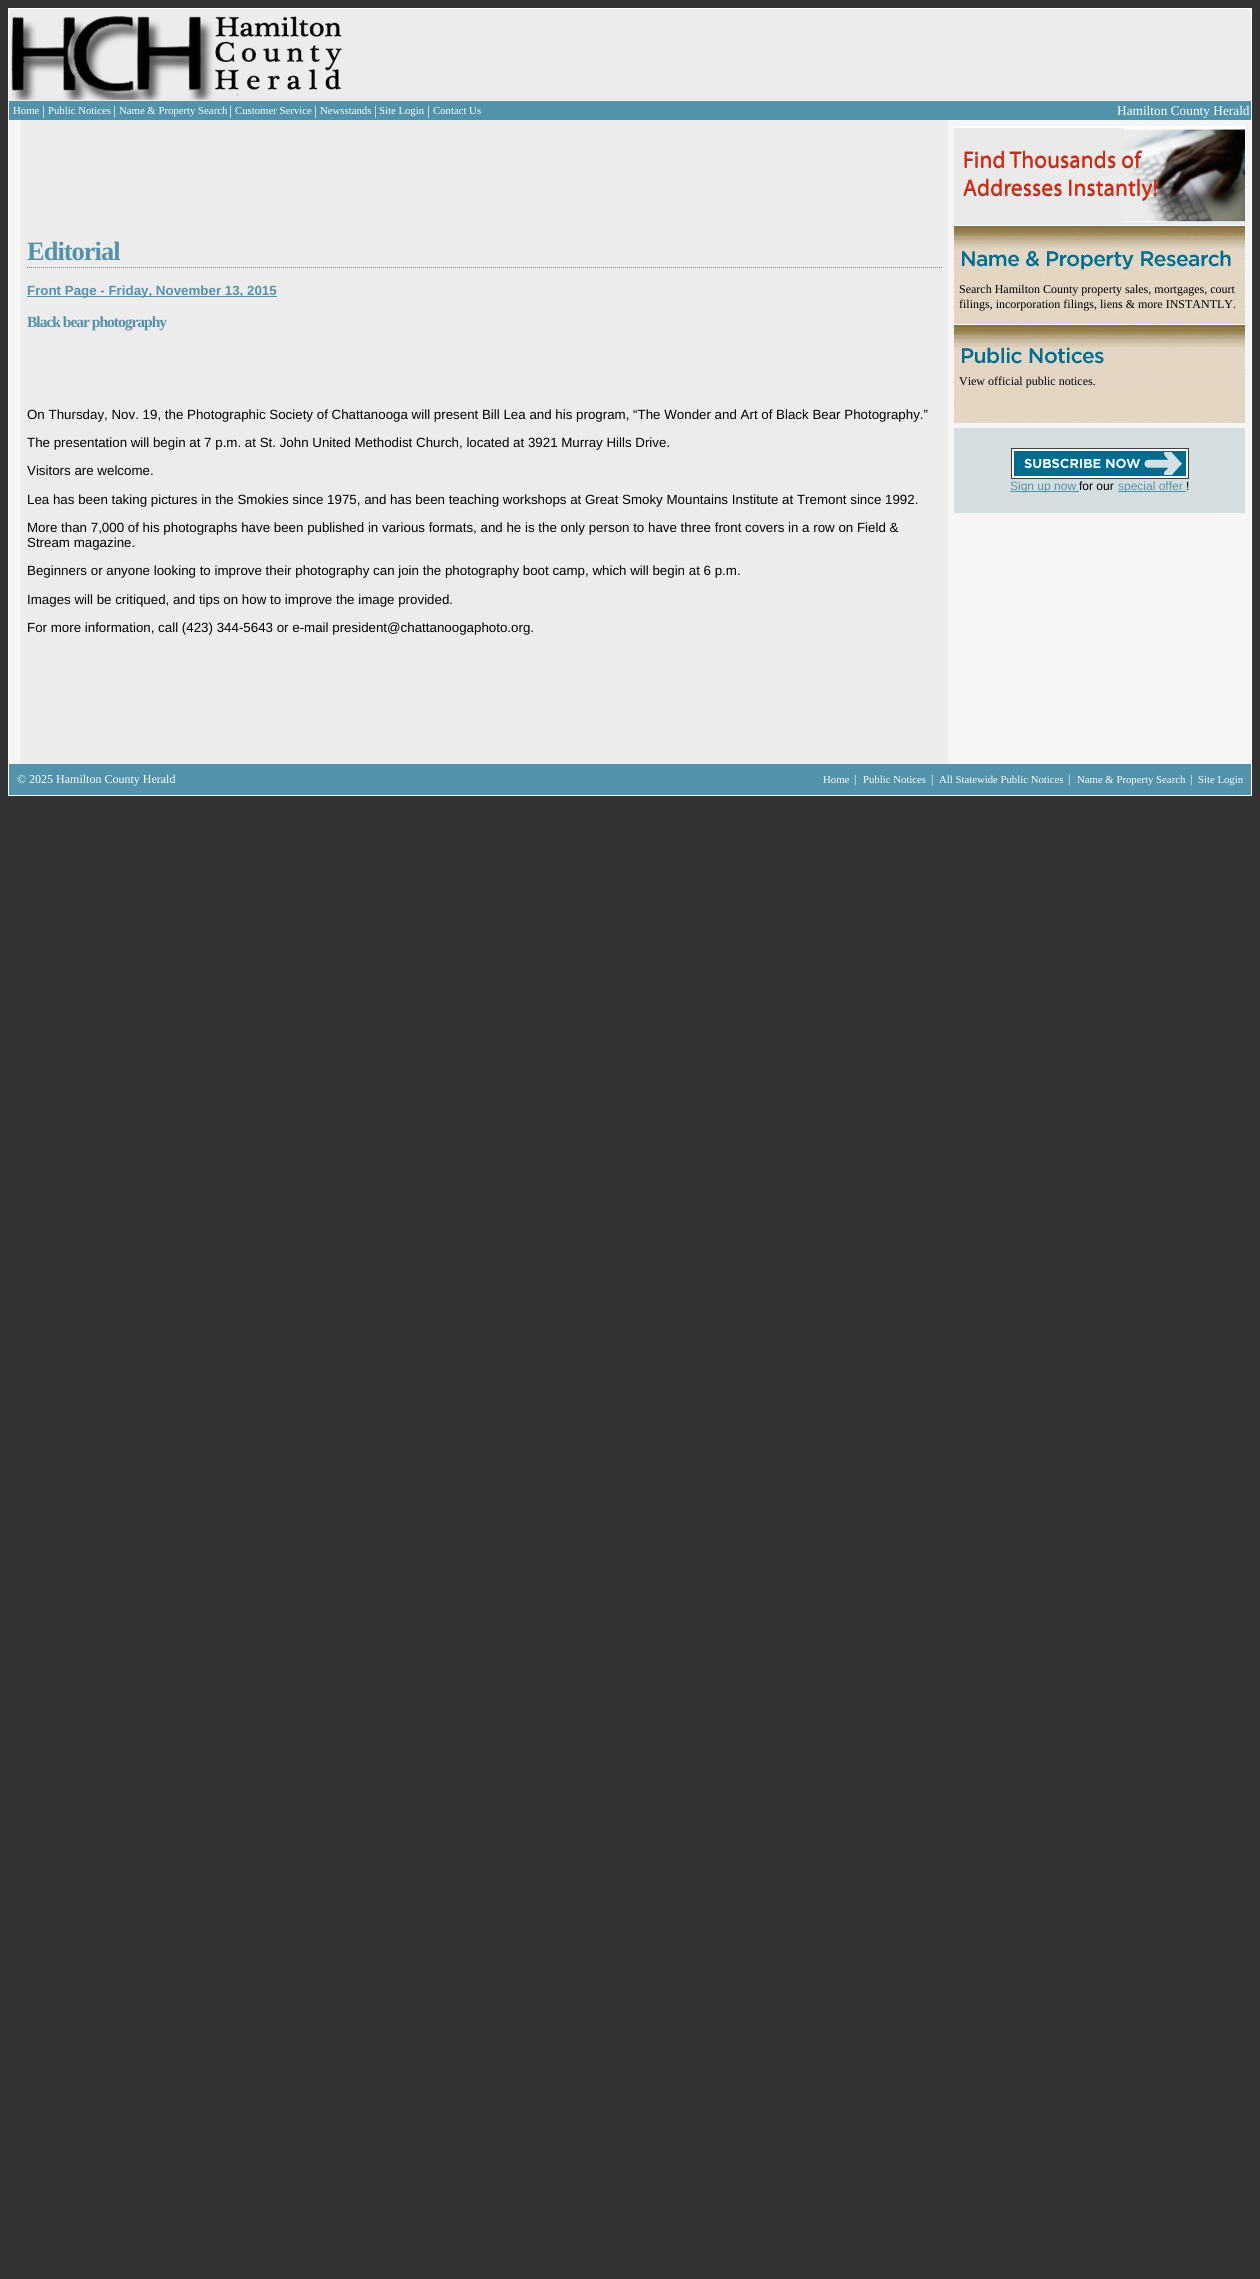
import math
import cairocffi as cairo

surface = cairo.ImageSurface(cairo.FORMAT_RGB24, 1260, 2279)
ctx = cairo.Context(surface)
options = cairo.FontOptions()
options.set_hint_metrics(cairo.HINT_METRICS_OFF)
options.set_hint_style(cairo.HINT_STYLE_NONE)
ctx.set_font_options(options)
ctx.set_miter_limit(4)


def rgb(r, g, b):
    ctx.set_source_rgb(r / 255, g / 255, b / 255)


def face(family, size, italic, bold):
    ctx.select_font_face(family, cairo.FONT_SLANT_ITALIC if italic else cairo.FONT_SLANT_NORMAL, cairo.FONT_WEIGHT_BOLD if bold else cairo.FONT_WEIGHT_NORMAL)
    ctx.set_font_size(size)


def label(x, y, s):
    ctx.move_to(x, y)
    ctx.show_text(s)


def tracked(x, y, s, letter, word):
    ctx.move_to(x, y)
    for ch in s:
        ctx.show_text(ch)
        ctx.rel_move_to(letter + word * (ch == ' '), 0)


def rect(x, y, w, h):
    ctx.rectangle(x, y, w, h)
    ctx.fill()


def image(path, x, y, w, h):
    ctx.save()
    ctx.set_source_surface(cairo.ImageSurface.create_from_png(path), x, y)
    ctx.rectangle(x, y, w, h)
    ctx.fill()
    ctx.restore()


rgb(51, 51, 51)
ctx.paint()
rgb(237, 236, 236)
rect(9, 9, 1242, 755)
rgb(255, 255, 255)
rect(8, 8, 1244, 1)
rect(1251, 8, 1, 788)
rect(8, 795, 1244, 1)
rect(8, 8, 1, 788)
image('image0.png', 11, 16, 331, 84)
rgb(82, 146, 170)
rect(9, 101, 1242, 19)
face('Liberation Serif', 10.75, 0, 0)
rgb(255, 255, 255)
label(13, 114, 'Home')
face('Liberation Serif', 13.33, 0, 0)
label(42, 115, '|')
face('Liberation Serif', 10.75, 0, 0)
label(48, 114, 'Public Notices')
face('Liberation Serif', 13.33, 0, 0)
label(113, 115, '|')
face('Liberation Serif', 10.75, 0, 0)
label(119, 114, 'Name & Property Search')
face('Liberation Serif', 13.33, 0, 0)
label(229, 115, '|')
face('Liberation Serif', 10.75, 0, 0)
label(235, 114, 'Customer Service')
face('Liberation Serif', 13.33, 0, 0)
label(314, 115, '|')
face('Liberation Serif', 10.75, 0, 0)
label(320, 114, 'Newsstands')
face('Liberation Serif', 13.33, 0, 0)
label(374, 115, '|')
face('Liberation Serif', 10.75, 0, 0)
label(379, 114, 'Site Login')
face('Liberation Serif', 13.33, 0, 0)
label(427, 115, '|')
face('Liberation Serif', 10.75, 0, 0)
label(433, 114, 'Contact Us')
face('Liberation Serif', 13.33, 0, 0)
label(1117, 115, 'Hamilton County Herald')
rgb(245, 245, 245)
rect(9, 120, 12, 644)
ctx.new_path()
ctx.move_to(27, 267.5)
ctx.line_to(942, 267.5)
rgb(128, 128, 128)
ctx.set_line_width(1)
ctx.set_dash([1, 1])
ctx.stroke()
face('Liberation Serif', 26.5, 0, 1)
rgb(82, 146, 170)
tracked(27, 260, 'Editorial', -1, 0)
rect(27, 296, 250, 1)
face('Liberation Sans', 13.33, 0, 1)
label(27, 295, 'Front Page - Friday, November 13, 2015')
face('Liberation Serif', 15.5, 0, 1)
tracked(27, 327, 'Black bear photography', -1, 0)
face('Liberation Sans', 13.33, 0, 0)
rgb(0, 0, 0)
label(27, 419, 'On Thursday, Nov. 19, the Photographic Society of Chattanooga will present Bill Lea and his program, “The Wonder and Art of Black Bear Photography.”')
label(27, 447, 'The presentation will begin at 7 p.m. at St. John United Methodist Church, located at 3921 Murray Hills Drive.')
label(27, 475, 'Visitors are welcome.')
label(27, 504, 'Lea has been taking pictures in the Smokies since 1975, and has been teaching workshops at Great Smoky Mountains Institute at Tremont since 1992.')
label(27, 532, 'More than 7,000 of his photographs have been published in various formats, and he is the only person to have three front covers in a row on Field &')
label(27, 547, 'Stream magazine.')
label(27, 575, 'Beginners or anyone looking to improve their photography can join the photography boot camp, which will begin at 6 p.m.')
label(27, 604, 'Images will be critiqued, and tips on how to improve the image provided.')
label(27, 632, 'For more information, call (423) 344-5643 or e-mail president@chattanoogaphoto.org.')
rgb(245, 245, 245)
rect(948, 120, 303, 644)
image('image1.png', 954, 126, 291, 99)
image('image2.png', 954, 225, 291, 99)
face('Liberation Serif', 12, 0, 0)
rgb(0, 0, 0)
label(959, 293, 'Search Hamilton County property sales, mortgages, court')
label(959, 308, 'filings, incorporation filings, liens & more INSTANTLY.')
image('image3.png', 954, 324, 291, 99)
label(959, 385, 'View official public notices.')
rgb(212, 222, 224)
rect(954, 428, 291, 85)
image('image4.png', 1011, 448, 178, 31)
rgb(82, 146, 170)
rect(1010, 491, 69, 1)
face('Liberation Sans', 12, 0, 0)
label(1010, 490, 'Sign up now')
rgb(0, 0, 0)
label(1079, 490, 'for our')
rgb(82, 146, 170)
rect(1118, 491, 68, 1)
label(1118, 490, 'special offer')
rgb(0, 0, 0)
label(1186, 490, '!')
rgb(82, 146, 170)
rect(9, 764, 1242, 31)
face('Liberation Serif', 12, 0, 0)
rgb(255, 255, 255)
label(17, 783, '© 2025 Hamilton County Herald')
face('Liberation Serif', 10.75, 0, 0)
label(823, 783, 'Home')
face('Liberation Serif', 12, 0, 0)
label(854, 783, '|')
face('Liberation Serif', 10.75, 0, 0)
label(863, 783, 'Public Notices')
face('Liberation Serif', 12, 0, 0)
label(931, 783, '|')
face('Liberation Serif', 10.75, 0, 0)
label(939, 783, 'All Statewide Public Notices')
face('Liberation Serif', 12, 0, 0)
label(1068, 783, '|')
face('Liberation Serif', 10.75, 0, 0)
label(1077, 783, 'Name & Property Search')
face('Liberation Serif', 12, 0, 0)
label(1190, 783, '|')
face('Liberation Serif', 10.75, 0, 0)
label(1198, 783, 'Site Login')
surface.write_to_png('render.png')
